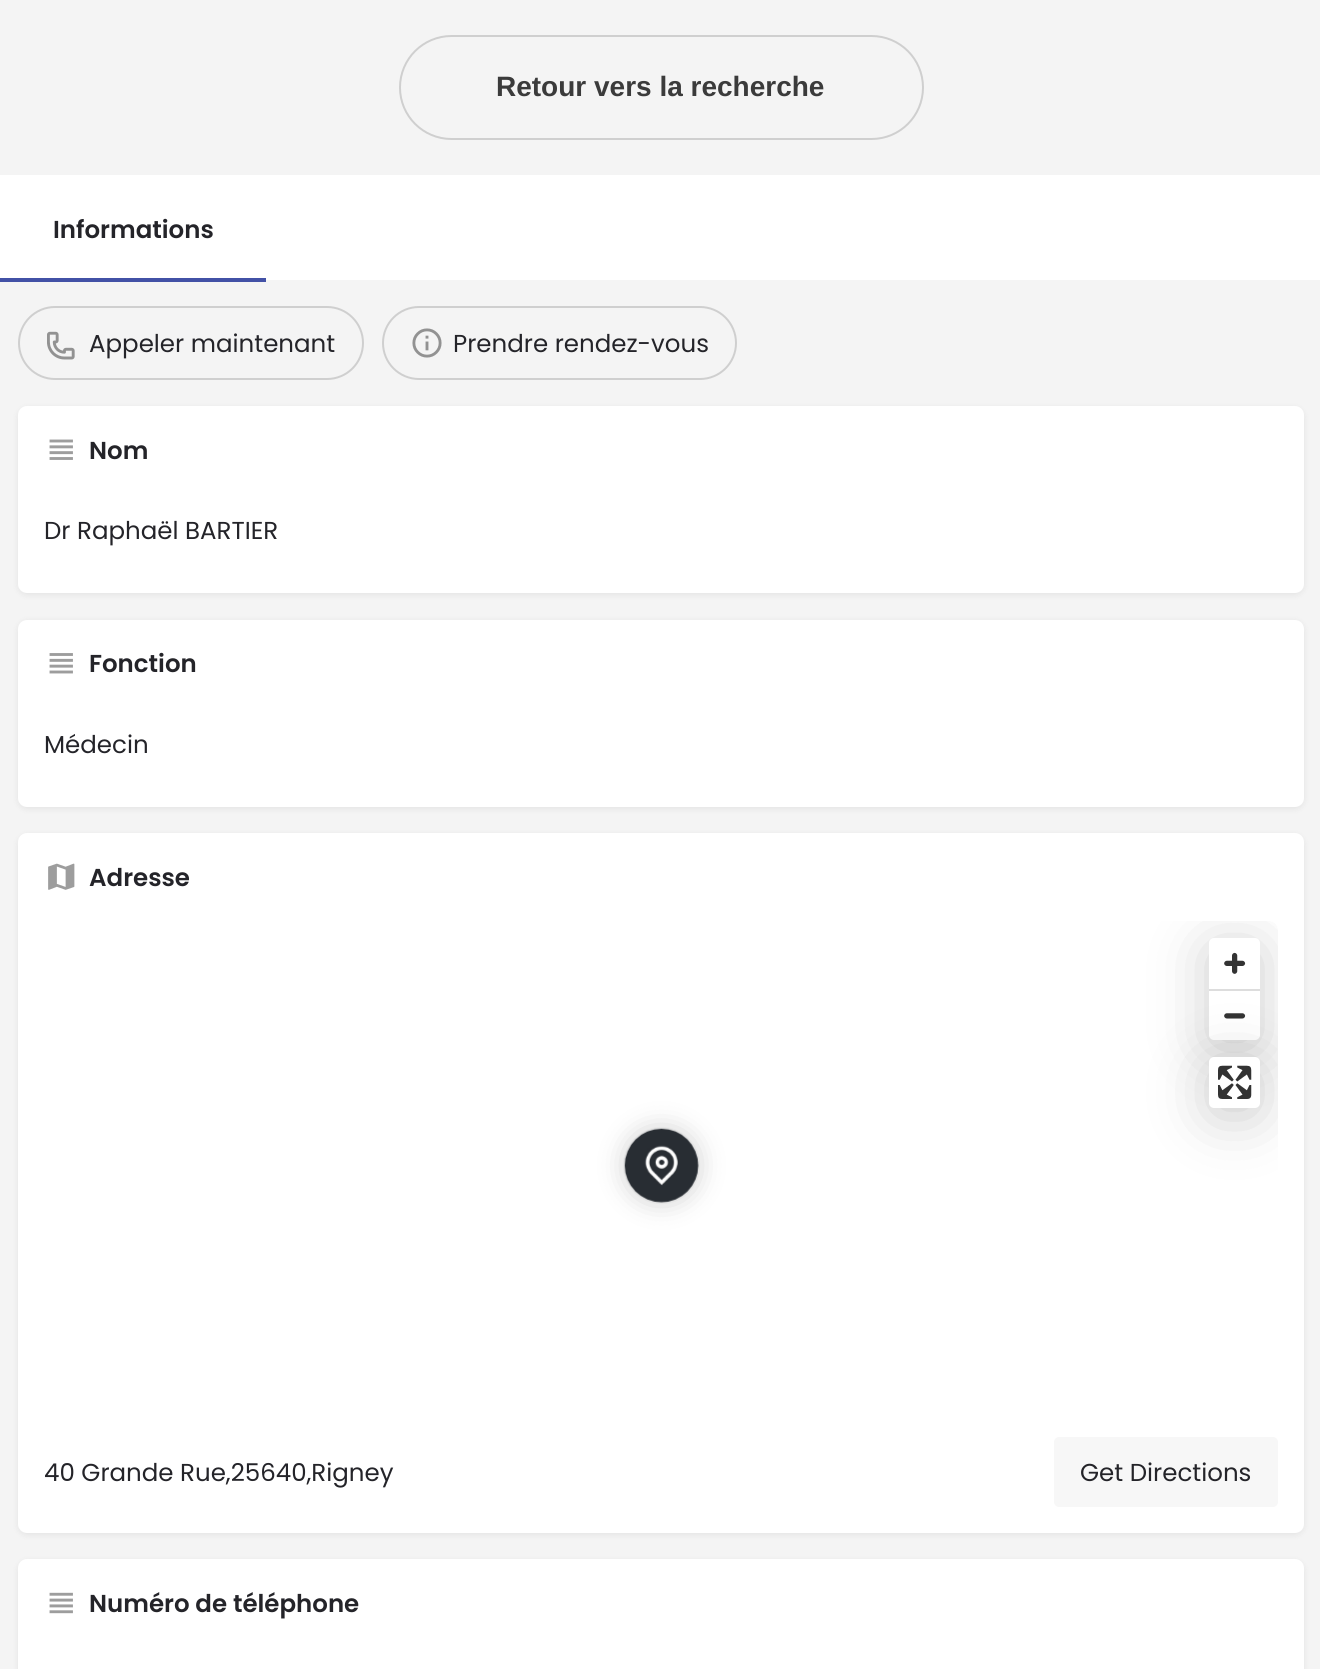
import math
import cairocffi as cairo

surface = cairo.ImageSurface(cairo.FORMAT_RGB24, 1320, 1669)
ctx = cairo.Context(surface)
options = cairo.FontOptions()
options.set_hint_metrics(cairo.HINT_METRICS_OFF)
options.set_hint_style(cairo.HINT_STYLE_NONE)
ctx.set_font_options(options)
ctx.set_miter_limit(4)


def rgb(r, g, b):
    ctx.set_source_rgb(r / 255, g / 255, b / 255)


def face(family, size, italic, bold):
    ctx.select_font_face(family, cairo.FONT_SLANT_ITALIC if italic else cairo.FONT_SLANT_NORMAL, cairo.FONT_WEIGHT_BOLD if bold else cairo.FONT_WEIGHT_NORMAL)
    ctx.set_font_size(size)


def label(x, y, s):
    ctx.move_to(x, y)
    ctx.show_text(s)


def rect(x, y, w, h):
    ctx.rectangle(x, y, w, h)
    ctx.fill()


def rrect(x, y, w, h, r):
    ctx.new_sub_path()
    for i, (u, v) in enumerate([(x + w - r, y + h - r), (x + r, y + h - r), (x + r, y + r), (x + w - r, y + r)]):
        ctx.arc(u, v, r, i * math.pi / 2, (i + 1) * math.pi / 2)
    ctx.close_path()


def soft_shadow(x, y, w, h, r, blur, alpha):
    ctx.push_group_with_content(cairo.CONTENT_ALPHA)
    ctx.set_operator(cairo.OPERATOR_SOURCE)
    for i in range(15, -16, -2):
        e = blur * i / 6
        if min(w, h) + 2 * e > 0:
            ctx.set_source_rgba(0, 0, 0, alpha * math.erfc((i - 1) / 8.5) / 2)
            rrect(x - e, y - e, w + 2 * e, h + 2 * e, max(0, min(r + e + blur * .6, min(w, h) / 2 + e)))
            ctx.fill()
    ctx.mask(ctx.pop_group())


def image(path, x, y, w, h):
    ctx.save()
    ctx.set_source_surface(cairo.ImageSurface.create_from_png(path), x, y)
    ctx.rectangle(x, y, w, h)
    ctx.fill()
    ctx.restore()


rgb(244, 244, 244)
ctx.paint()
rrect(400, 36, 523, 103, 51.5)
rgb(207, 207, 207)
ctx.stroke()
face('Liberation Sans', 28, 0, 1)
rgb(59, 59, 59)
label(496, 96, 'Retour vers la recherche')
rgb(255, 255, 255)
rect(0, 175, 1320, 105)
face('Poppins SemiBold', 24.5, 0, 0)
rgb(36, 36, 41)
label(53, 238, 'Informations')
rgb(66, 81, 166)
rect(0, 278, 266, 4)
rrect(19, 307, 344, 72, 36)
rgb(207, 207, 207)
ctx.stroke()
image('image0.png', 47, 331, 28, 29)
face('Poppins', 24.5, 0, 0)
rgb(36, 36, 41)
label(89, 352, 'Appeler maintenant')
rrect(383, 307, 353, 72, 36)
rgb(207, 207, 207)
ctx.stroke()
image('image1.png', 412, 328, 30, 30)
rgb(36, 36, 41)
label(453, 352, 'Prendre rendez-vous')
rgb(0, 0, 0)
soft_shadow(18, 408, 1286, 187, 9, 3.5, 0.07)
rgb(255, 255, 255)
rrect(18, 406, 1286, 187, 9)
ctx.fill()
image('image2.png', 49, 439, 24, 21)
face('Poppins SemiBold', 24.5, 0, 0)
rgb(36, 36, 41)
label(89, 459, 'Nom')
face('Poppins', 24.5, 0, 0)
label(44, 539, 'Dr Raphaël BARTIER')
rgb(0, 0, 0)
soft_shadow(18, 621, 1286, 188, 9, 3.5, 0.07)
rgb(255, 255, 255)
rrect(18, 620, 1286, 187, 9)
ctx.fill()
image('image3.png', 49, 653, 24, 21)
face('Poppins SemiBold', 24.5, 0, 0)
rgb(36, 36, 41)
label(89, 672, 'Fonction')
face('Poppins', 24.5, 0, 0)
label(44, 753, 'Médecin')
rgb(0, 0, 0)
soft_shadow(18, 835, 1286, 700, 9, 3.5, 0.07)
rgb(255, 255, 255)
rrect(18, 833, 1286, 700, 9)
ctx.fill()
image('image4.png', 48, 863, 27, 27)
face('Poppins SemiBold', 24.5, 0, 0)
rgb(36, 36, 41)
label(89, 886, 'Adresse')
rgb(0, 0, 0)
soft_shadow(625, 1129, 73, 73, 36.5, 13, 0.2)
image('image5.png', 624, 1128, 75, 75)
ctx.save()
rrect(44, 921, 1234, 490, 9)
ctx.clip()
soft_shadow(1209, 947, 51, 101, 5, 29, 0.2)
ctx.restore()
rgb(255, 255, 255)
rrect(1209, 938, 51, 102, 5)
ctx.fill()
image('image6.png', 1224, 952, 22, 22)
rgb(221, 221, 221)
rect(1209, 989, 51, 2)
image('image7.png', 1224, 1013, 22, 6)
ctx.save()
rrect(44, 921, 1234, 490, 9)
ctx.clip()
rgb(0, 0, 0)
soft_shadow(1209, 1066, 51, 51, 5, 29, 0.2)
ctx.restore()
rgb(255, 255, 255)
rrect(1209, 1057, 51, 51, 5)
ctx.fill()
image('image8.png', 1218, 1065, 34, 34)
face('Poppins', 24.5, 0, 0)
rgb(36, 36, 41)
label(44, 1481, '40 Grande Rue,25640,Rigney')
rgb(247, 247, 247)
rrect(1054, 1437, 224, 70, 5)
ctx.fill()
rgb(36, 36, 41)
label(1080, 1481, 'Get Directions')
rgb(0, 0, 0)
soft_shadow(18, 1561, 1286, 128, 9, 3.5, 0.07)
rgb(255, 255, 255)
rrect(18, 1559, 1286, 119, 9)
ctx.fill()
image('image9.png', 49, 1592, 24, 22)
face('Poppins SemiBold', 24.5, 0, 0)
rgb(36, 36, 41)
label(89, 1612, 'Numéro de téléphone')
surface.write_to_png('render.png')
